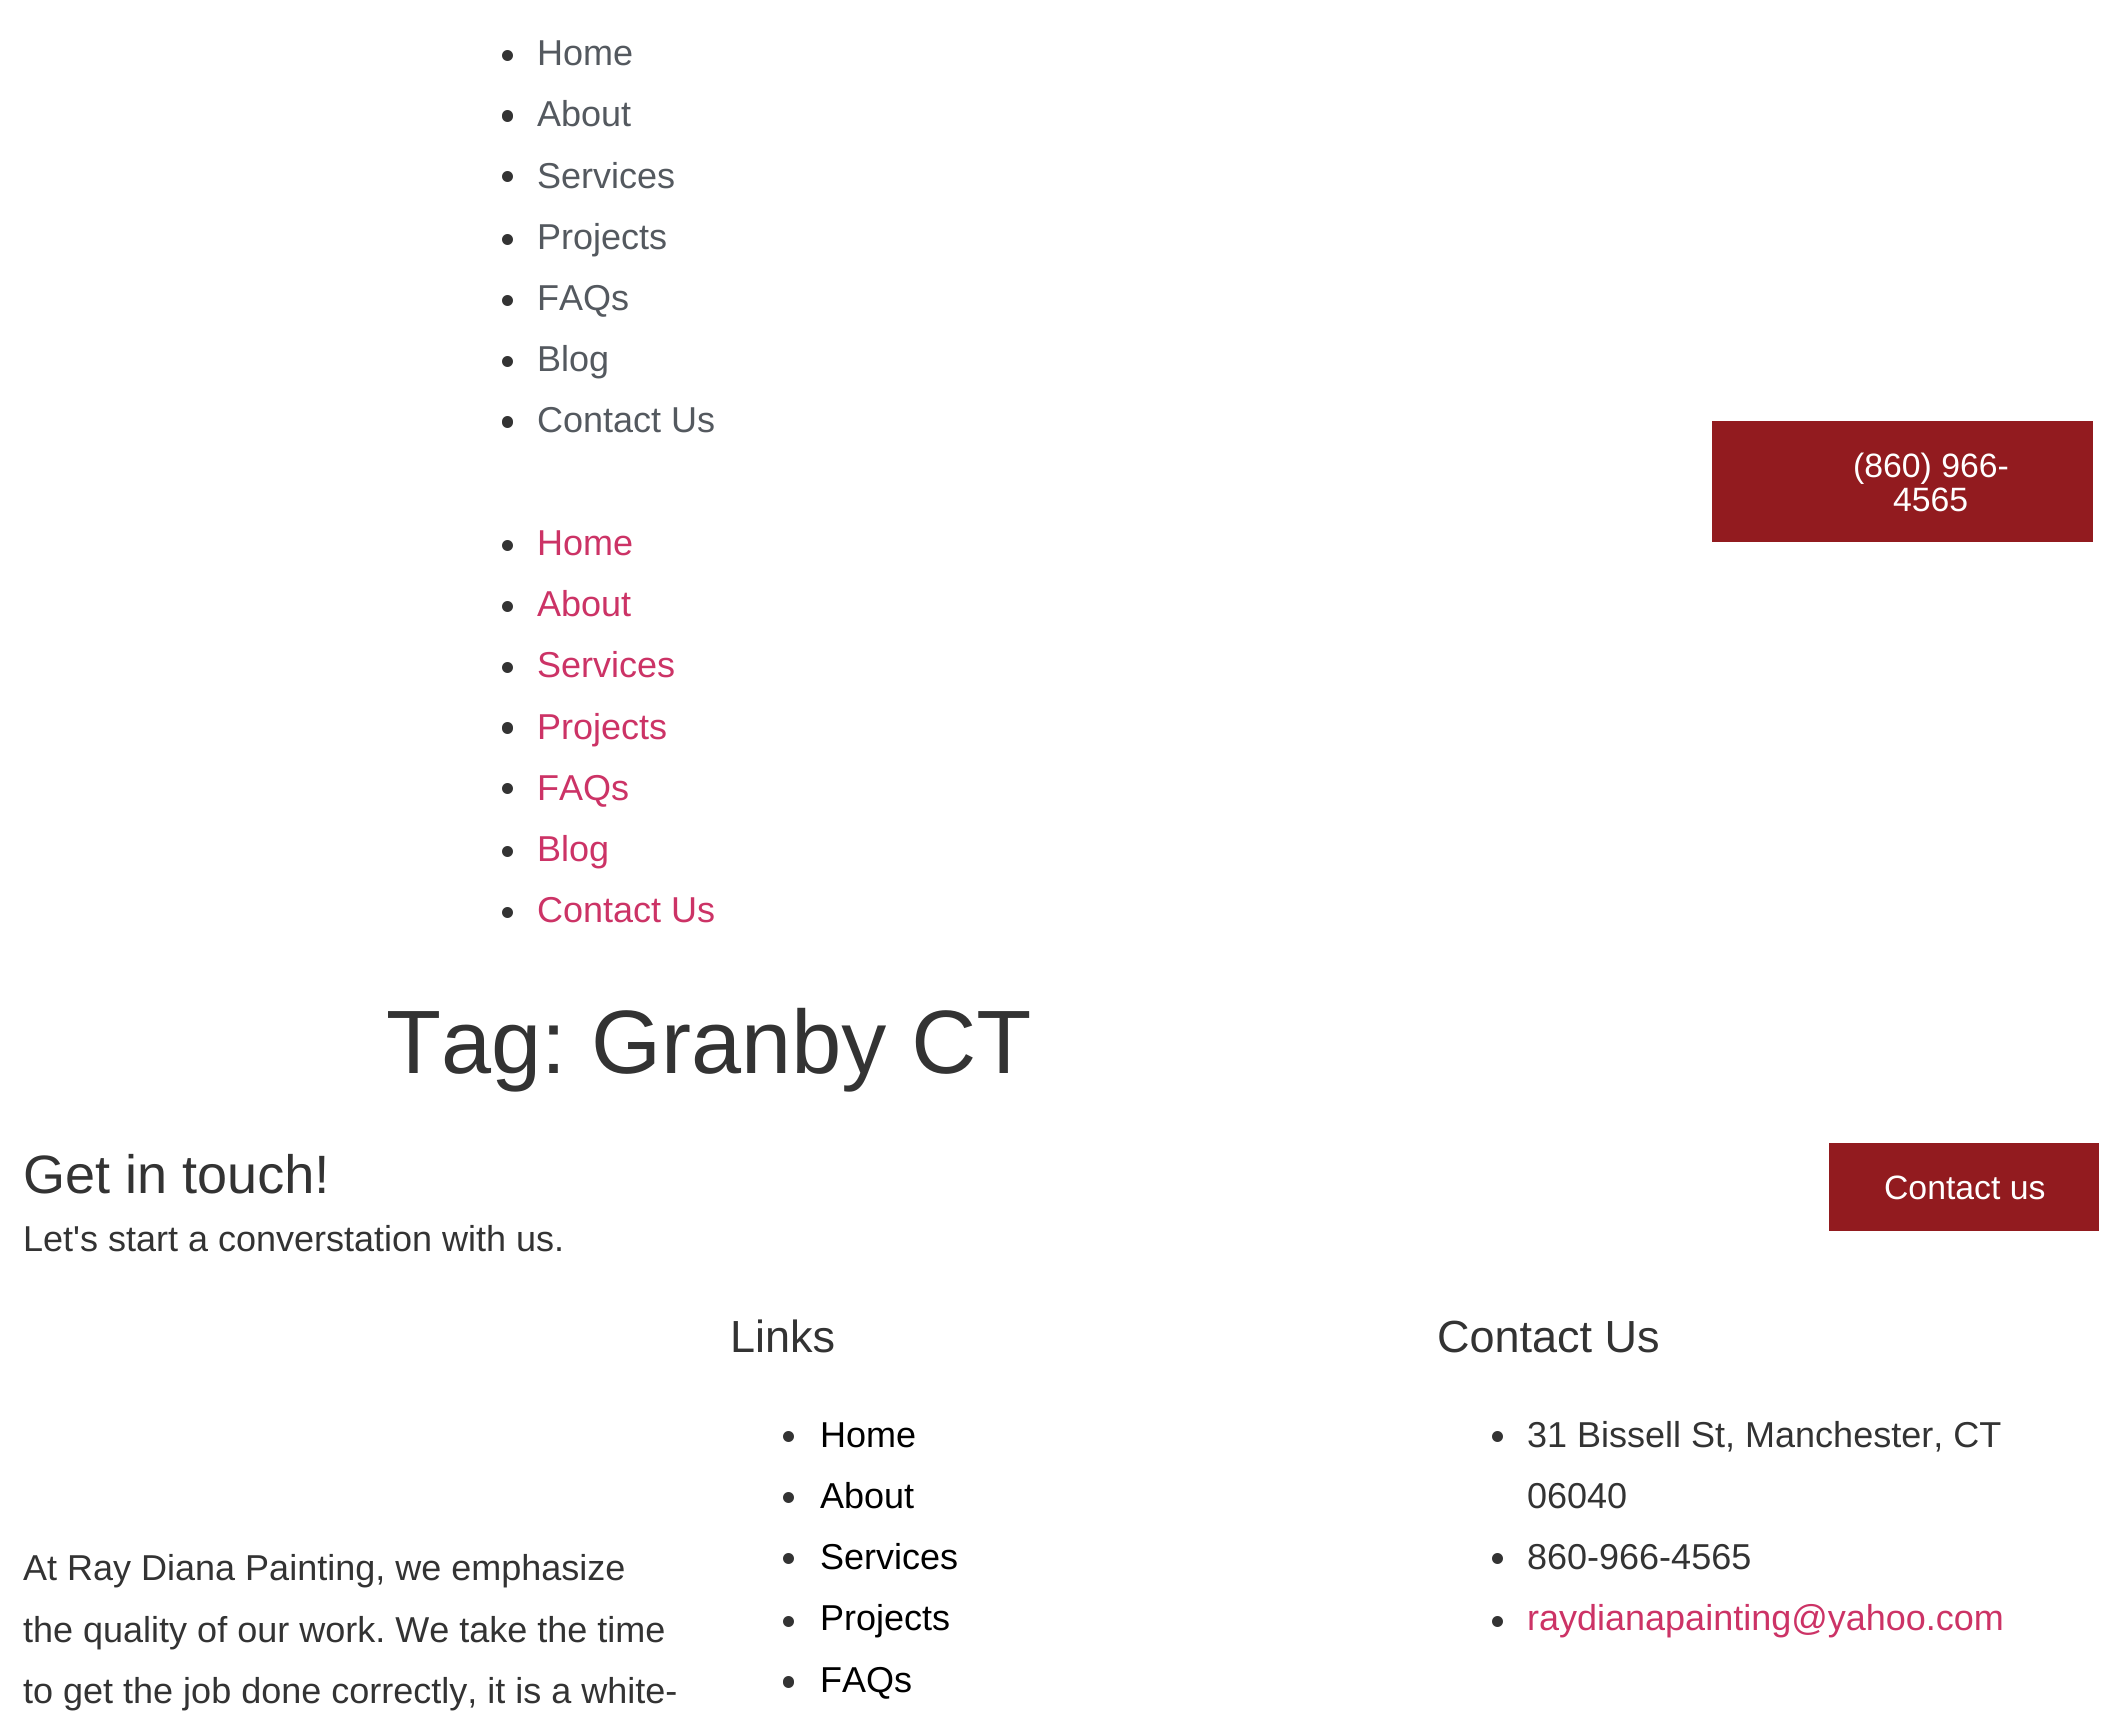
import math
import cairocffi as cairo

surface = cairo.ImageSurface(cairo.FORMAT_RGB24, 2121, 1722)
ctx = cairo.Context(surface)
options = cairo.FontOptions()
options.set_hint_metrics(cairo.HINT_METRICS_OFF)
options.set_hint_style(cairo.HINT_STYLE_NONE)
ctx.set_font_options(options)
ctx.set_miter_limit(4)


def rgb(r, g, b):
    ctx.set_source_rgb(r / 255, g / 255, b / 255)


def face(family, size, italic, bold):
    ctx.select_font_face(family, cairo.FONT_SLANT_ITALIC if italic else cairo.FONT_SLANT_NORMAL, cairo.FONT_WEIGHT_BOLD if bold else cairo.FONT_WEIGHT_NORMAL)
    ctx.set_font_size(size)


def label(x, y, s):
    ctx.move_to(x, y)
    ctx.show_text(s)


def rect(x, y, w, h):
    ctx.rectangle(x, y, w, h)
    ctx.fill()


def rrect(x, y, w, h, r):
    ctx.new_sub_path()
    for i, (u, v) in enumerate([(x + w - r, y + h - r), (x + r, y + h - r), (x + r, y + r), (x + w - r, y + r)]):
        ctx.arc(u, v, r, i * math.pi / 2, (i + 1) * math.pi / 2)
    ctx.close_path()


rgb(255, 255, 255)
ctx.paint()
rgb(51, 51, 51)
ctx.arc(507.5, 55.5, 5.5, 0, 2 * math.pi)
ctx.fill()
face('Liberation Sans', 36, 0, 0)
rgb(84, 89, 95)
label(537, 65, 'Home')
rgb(51, 51, 51)
rrect(502, 110, 11, 12, 5.5)
ctx.fill()
rgb(84, 89, 95)
label(537, 126, 'About')
rgb(51, 51, 51)
ctx.new_path()
ctx.arc(507.5, 176.5, 5.5, 0, 2 * math.pi)
ctx.fill()
rgb(84, 89, 95)
label(537, 188, 'Services')
rgb(51, 51, 51)
ctx.new_path()
ctx.arc(507.5, 239.5, 5.5, 0, 2 * math.pi)
ctx.fill()
rgb(84, 89, 95)
label(537, 249, 'Projects')
rgb(51, 51, 51)
ctx.new_path()
ctx.arc(507.5, 300.5, 5.5, 0, 2 * math.pi)
ctx.fill()
rgb(84, 89, 95)
label(537, 310, 'FAQs')
rgb(51, 51, 51)
ctx.new_path()
ctx.arc(507.5, 361.5, 5.5, 0, 2 * math.pi)
ctx.fill()
rgb(84, 89, 95)
label(537, 371, 'Blog')
rgb(51, 51, 51)
rrect(502, 416, 11, 12, 5.5)
ctx.fill()
rgb(84, 89, 95)
label(537, 432, 'Contact Us')
rgb(51, 51, 51)
ctx.new_path()
ctx.arc(507.5, 545.5, 5.5, 0, 2 * math.pi)
ctx.fill()
rgb(204, 51, 102)
label(537, 555, 'Home')
rgb(51, 51, 51)
ctx.new_path()
ctx.arc(507.5, 606.5, 5.5, 0, 2 * math.pi)
ctx.fill()
rgb(204, 51, 102)
label(537, 616, 'About')
rgb(51, 51, 51)
ctx.new_path()
ctx.arc(507.5, 667.5, 5.5, 0, 2 * math.pi)
ctx.fill()
rgb(204, 51, 102)
label(537, 677, 'Services')
rgb(51, 51, 51)
rrect(502, 722, 11, 12, 5.5)
ctx.fill()
rgb(204, 51, 102)
label(537, 739, 'Projects')
rgb(51, 51, 51)
ctx.new_path()
ctx.arc(507.5, 788.5, 5.5, 0, 2 * math.pi)
ctx.fill()
rgb(204, 51, 102)
label(537, 800, 'FAQs')
rgb(51, 51, 51)
ctx.new_path()
ctx.arc(507.5, 851.5, 5.5, 0, 2 * math.pi)
ctx.fill()
rgb(204, 51, 102)
label(537, 861, 'Blog')
rgb(51, 51, 51)
ctx.new_path()
ctx.arc(507.5, 912.5, 5.5, 0, 2 * math.pi)
ctx.fill()
rgb(204, 51, 102)
label(537, 922, 'Contact Us')
rgb(146, 27, 31)
rect(1712, 421, 381, 121)
face('Liberation Sans', 33.75, 0, 0)
rgb(255, 255, 255)
label(1853, 477, '(860) 966-')
label(1893, 511, '4565')
face('Liberation Sans', 90, 0, 0)
rgb(51, 51, 51)
label(386, 1073, 'Tag: Granby CT')
face('Liberation Sans', 54, 0, 0)
label(23, 1193, 'Get in touch!')
face('Liberation Sans', 36, 0, 0)
label(23, 1251, 'Let\'s start a converstation with us.')
rgb(146, 27, 31)
rect(1829, 1143, 270, 88)
face('Liberation Sans', 33.75, 0, 0)
rgb(255, 255, 255)
label(1884, 1199, 'Contact us')
face('Liberation Sans', 36, 0, 0)
rgb(51, 51, 51)
label(23, 1580, 'At Ray Diana Painting, we emphasize')
label(23, 1642, 'the quality of our work. We take the time')
label(23, 1703, 'to get the job done correctly, it is a white-')
face('Liberation Sans', 45, 0, 0)
label(730, 1352, 'Links')
ctx.new_path()
ctx.arc(788.5, 1436.5, 5.5, 0, 2 * math.pi)
ctx.fill()
face('Liberation Sans', 36, 0, 0)
rgb(0, 0, 0)
label(820, 1447, 'Home')
rgb(51, 51, 51)
ctx.new_path()
ctx.arc(788.5, 1497.5, 5.5, 0, 2 * math.pi)
ctx.fill()
rgb(0, 0, 0)
label(820, 1508, 'About')
rgb(51, 51, 51)
ctx.new_path()
ctx.arc(788.5, 1558.5, 5.5, 0, 2 * math.pi)
ctx.fill()
rgb(0, 0, 0)
label(820, 1569, 'Services')
rgb(51, 51, 51)
ctx.new_path()
ctx.arc(788.5, 1621.5, 5.5, 0, 2 * math.pi)
ctx.fill()
rgb(0, 0, 0)
label(820, 1630, 'Projects')
rgb(51, 51, 51)
rrect(783, 1676, 11, 12, 5.5)
ctx.fill()
rgb(0, 0, 0)
label(820, 1692, 'FAQs')
face('Liberation Sans', 45, 0, 0)
rgb(51, 51, 51)
label(1437, 1352, 'Contact Us')
ctx.new_path()
ctx.arc(1497.5, 1436.5, 5.5, 0, 2 * math.pi)
ctx.fill()
face('Liberation Sans', 36, 0, 0)
label(1527, 1447, '31 Bissell St, Manchester, CT')
label(1527, 1508, '06040')
ctx.new_path()
ctx.arc(1497.5, 1558.5, 5.5, 0, 2 * math.pi)
ctx.fill()
label(1527, 1569, '860-966-4565')
ctx.new_path()
ctx.arc(1497.5, 1621.5, 5.5, 0, 2 * math.pi)
ctx.fill()
rgb(204, 51, 102)
label(1527, 1630, 'raydianapainting@yahoo.com')
surface.write_to_png('render.png')
